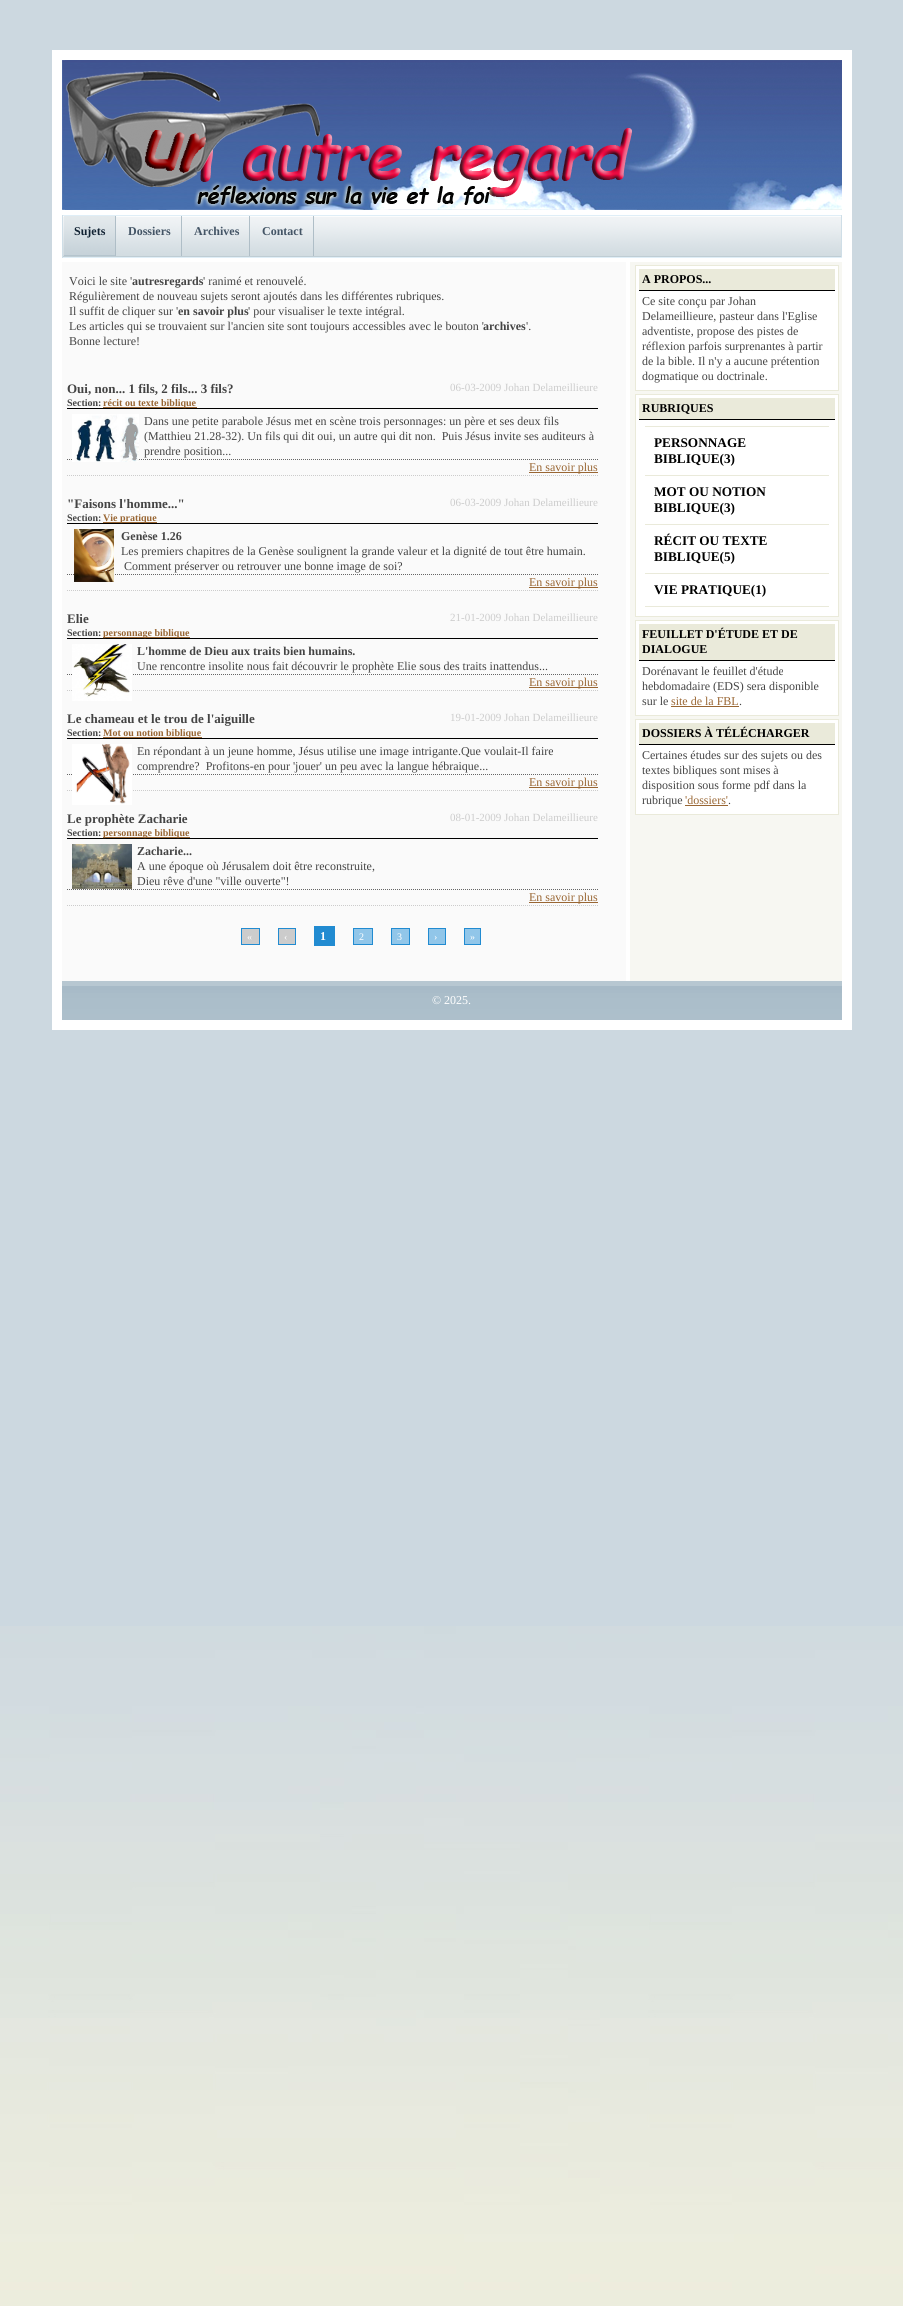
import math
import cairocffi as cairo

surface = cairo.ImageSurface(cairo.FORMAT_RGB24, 903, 2306)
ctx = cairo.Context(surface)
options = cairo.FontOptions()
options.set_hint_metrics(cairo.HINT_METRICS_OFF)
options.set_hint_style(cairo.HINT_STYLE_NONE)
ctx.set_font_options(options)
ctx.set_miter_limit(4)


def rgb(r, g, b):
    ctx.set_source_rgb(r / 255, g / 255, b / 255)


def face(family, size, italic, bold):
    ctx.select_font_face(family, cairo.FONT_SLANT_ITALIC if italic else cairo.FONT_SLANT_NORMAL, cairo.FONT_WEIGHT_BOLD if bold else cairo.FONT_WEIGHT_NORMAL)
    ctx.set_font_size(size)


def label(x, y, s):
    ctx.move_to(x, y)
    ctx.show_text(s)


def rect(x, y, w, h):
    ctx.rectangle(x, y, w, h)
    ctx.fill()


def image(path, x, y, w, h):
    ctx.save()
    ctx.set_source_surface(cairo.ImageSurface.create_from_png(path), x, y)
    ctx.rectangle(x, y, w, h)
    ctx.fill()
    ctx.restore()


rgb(204, 216, 224)
ctx.paint()
image('image0.png', 0, 1626, 903, 680)
rgb(255, 255, 255)
rect(52, 50, 800, 980)
image('image1.png', 62, 60, 780, 150)
image('image2.png', 63, 216, 778, 41)
rgb(223, 238, 247)
rect(62, 215, 780, 1)
rgb(207, 222, 231)
rect(841, 215, 1, 43)
rgb(223, 238, 247)
rect(62, 257, 780, 1)
rgb(207, 222, 231)
rect(62, 215, 1, 43)
image('image3.png', 64, 216, 51, 40)
rgb(175, 190, 199)
rect(115, 216, 1, 40)
face('Liberation Serif', 12, 0, 1)
rgb(17, 34, 51)
label(74, 235, 'Sujets')
rgb(175, 190, 199)
rect(181, 216, 1, 40)
rgb(68, 85, 102)
label(128, 235, 'Dossiers')
rgb(175, 190, 199)
rect(249, 216, 1, 40)
rgb(68, 85, 102)
label(194, 235, 'Archives')
rgb(175, 190, 199)
rect(313, 216, 1, 40)
rgb(68, 85, 102)
label(262, 235, 'Contact')
image('image4.png', 62, 262, 780, 719)
face('Liberation Serif', 12, 0, 0)
rgb(68, 68, 68)
label(69, 285, 'Voici le site \'')
face('Liberation Serif', 12, 0, 1)
label(132, 285, 'autresregards')
face('Liberation Serif', 12, 0, 0)
label(203, 285, '\' ranimé et renouvelé.')
label(69, 300, 'Régulièrement de nouveau sujets seront ajoutés dans les différentes rubriques.')
label(69, 315, 'Il suffit de cliquer sur \'')
face('Liberation Serif', 12, 0, 1)
label(178, 315, 'en savoir plus')
face('Liberation Serif', 12, 0, 0)
label(248, 315, '\' pour visualiser le texte intégral.')
label(69, 330, 'Les articles qui se trouvaient sur l\'ancien site sont toujours accessibles avec le bouton \'')
face('Liberation Serif', 12, 0, 1)
label(483, 330, 'archives')
face('Liberation Serif', 12, 0, 0)
label(526, 330, '\'.')
label(69, 345, 'Bonne lecture!')
rgb(0, 0, 0)
rect(67, 408, 531, 1)
face('Liberation Serif', 13, 0, 1)
rgb(68, 68, 68)
label(67, 393, 'Oui, non... 1 fils, 2 fils... 3 fils?')
face('Liberation Serif', 11, 0, 0)
rgb(204, 204, 204)
label(450, 391, '06-03-2009 Johan Delameillieure')
face('Liberation Serif', 10, 0, 1)
rgb(68, 68, 68)
label(67, 406, 'Section:')
rgb(153, 102, 51)
rect(103, 407, 94, 1)
label(103, 406, 'récit ou texte biblique')
ctx.new_path()
ctx.move_to(67, 459.5)
ctx.line_to(598, 459.5)
rgb(102, 102, 102)
ctx.set_line_width(1)
ctx.set_dash([1, 1])
ctx.stroke()
image('image5.png', 72, 414, 67, 48)
face('Liberation Serif', 12, 0, 0)
rgb(68, 68, 68)
label(144, 425, 'Dans une petite parabole Jésus met en scène trois personnages: un père et ses deux fils')
label(144, 440, '(Matthieu 21.28-32). Un fils qui dit oui, un autre qui dit non.  Puis Jésus invite ses auditeurs à')
label(144, 455, 'prendre position...')
ctx.new_path()
ctx.move_to(67, 475.5)
ctx.line_to(598, 475.5)
rgb(204, 204, 204)
ctx.stroke()
rgb(153, 102, 51)
rect(529, 472, 69, 1)
label(529, 471, 'En savoir plus')
rgb(0, 0, 0)
rect(67, 523, 531, 1)
face('Liberation Serif', 13, 0, 1)
rgb(68, 68, 68)
label(67, 508, '"Faisons l\'homme..."')
face('Liberation Serif', 11, 0, 0)
rgb(204, 204, 204)
label(450, 506, '06-03-2009 Johan Delameillieure')
face('Liberation Serif', 10, 0, 1)
rgb(68, 68, 68)
label(67, 521, 'Section:')
rgb(153, 102, 51)
rect(103, 522, 54, 1)
label(103, 521, 'Vie pratique')
ctx.new_path()
ctx.move_to(67, 574.5)
ctx.line_to(598, 574.5)
rgb(102, 102, 102)
ctx.stroke()
image('image6.png', 74, 529, 40, 53)
face('Liberation Serif', 12, 0, 1)
rgb(68, 68, 68)
label(121, 540, 'Genèse 1.26')
face('Liberation Serif', 12, 0, 0)
label(121, 555, 'Les premiers chapitres de la Genèse soulignent la grande valeur et la dignité de tout être humain.')
label(124, 570, 'Comment préserver ou retrouver une bonne image de soi?')
ctx.new_path()
ctx.move_to(67, 590.5)
ctx.line_to(598, 590.5)
rgb(204, 204, 204)
ctx.stroke()
rgb(153, 102, 51)
rect(529, 587, 69, 1)
label(529, 586, 'En savoir plus')
rgb(0, 0, 0)
rect(67, 638, 531, 1)
face('Liberation Serif', 13, 0, 1)
rgb(68, 68, 68)
label(67, 623, 'Elie')
face('Liberation Serif', 11, 0, 0)
rgb(204, 204, 204)
label(450, 621, '21-01-2009 Johan Delameillieure')
face('Liberation Serif', 10, 0, 1)
rgb(68, 68, 68)
label(67, 636, 'Section:')
rgb(153, 102, 51)
rect(103, 637, 87, 1)
label(103, 636, 'personnage biblique')
ctx.new_path()
ctx.move_to(67, 674.5)
ctx.line_to(598, 674.5)
rgb(102, 102, 102)
ctx.stroke()
ctx.new_path()
ctx.move_to(67, 690.5)
ctx.line_to(598, 690.5)
rgb(204, 204, 204)
ctx.stroke()
image('image7.png', 72, 644, 60, 57)
face('Liberation Serif', 12, 0, 1)
rgb(68, 68, 68)
label(137, 655, 'L\'homme de Dieu aux traits bien humains.')
face('Liberation Serif', 12, 0, 0)
label(137, 670, 'Une rencontre insolite nous fait découvrir le prophète Elie sous des traits inattendus...')
rgb(153, 102, 51)
rect(529, 687, 69, 1)
label(529, 686, 'En savoir plus')
rgb(0, 0, 0)
rect(67, 738, 531, 1)
face('Liberation Serif', 13, 0, 1)
rgb(68, 68, 68)
label(67, 723, 'Le chameau et le trou de l\'aiguille')
face('Liberation Serif', 11, 0, 0)
rgb(204, 204, 204)
label(450, 721, '19-01-2009 Johan Delameillieure')
face('Liberation Serif', 10, 0, 1)
rgb(68, 68, 68)
label(67, 736, 'Section:')
rgb(153, 102, 51)
rect(103, 737, 99, 1)
label(103, 736, 'Mot ou notion biblique')
ctx.new_path()
ctx.move_to(67, 774.5)
ctx.line_to(598, 774.5)
rgb(102, 102, 102)
ctx.stroke()
ctx.new_path()
ctx.move_to(67, 790.5)
ctx.line_to(598, 790.5)
rgb(204, 204, 204)
ctx.stroke()
image('image8.png', 72, 744, 60, 61)
face('Liberation Serif', 12, 0, 0)
rgb(68, 68, 68)
label(137, 755, 'En répondant à un jeune homme, Jésus utilise une image intrigante.Que voulait-Il faire')
label(137, 770, 'comprendre?  Profitons-en pour \'jouer\' un peu avec la langue hébraique...')
rgb(153, 102, 51)
rect(529, 787, 69, 1)
label(529, 786, 'En savoir plus')
rgb(0, 0, 0)
rect(67, 838, 531, 1)
face('Liberation Serif', 13, 0, 1)
rgb(68, 68, 68)
label(67, 823, 'Le prophète Zacharie')
face('Liberation Serif', 11, 0, 0)
rgb(204, 204, 204)
label(450, 821, '08-01-2009 Johan Delameillieure')
face('Liberation Serif', 10, 0, 1)
rgb(68, 68, 68)
label(67, 836, 'Section:')
rgb(153, 102, 51)
rect(103, 837, 87, 1)
label(103, 836, 'personnage biblique')
image('image9.png', 72, 844, 60, 45)
face('Liberation Serif', 12, 0, 1)
rgb(68, 68, 68)
label(137, 855, 'Zacharie...')
face('Liberation Serif', 12, 0, 0)
label(137, 870, 'A une époque où Jérusalem doit être reconstruite,')
label(137, 885, 'Dieu rêve d\'une "ville ouverte"!')
ctx.new_path()
ctx.move_to(67, 889.5)
ctx.line_to(598, 889.5)
rgb(102, 102, 102)
ctx.stroke()
ctx.new_path()
ctx.move_to(67, 905.5)
ctx.line_to(598, 905.5)
rgb(204, 204, 204)
ctx.stroke()
rgb(153, 102, 51)
rect(529, 902, 69, 1)
label(529, 901, 'En savoir plus')
rgb(204, 204, 204)
rect(242, 929, 10, 15)
face('Liberation Serif', 10, 0, 0)
rgb(255, 255, 255)
label(247, 940, '«')
rgb(33, 139, 209)
rect(241, 928, 11, 1)
rect(241, 944, 11, 1)
rect(241, 928, 1, 17)
rgb(204, 204, 204)
rect(252, 928, 7, 17)
rgb(33, 139, 209)
rect(252, 928, 8, 1)
rect(259, 928, 1, 17)
rect(252, 944, 8, 1)
rgb(204, 204, 204)
rect(279, 929, 9, 15)
rgb(255, 255, 255)
label(284, 940, '‹')
rgb(33, 139, 209)
rect(278, 928, 10, 1)
rect(278, 944, 10, 1)
rect(278, 928, 1, 17)
rgb(204, 204, 204)
rect(288, 928, 7, 17)
rgb(33, 139, 209)
rect(288, 928, 8, 1)
rect(295, 928, 1, 17)
rect(288, 944, 8, 1)
rect(314, 926, 21, 20)
face('Liberation Serif', 12, 0, 1)
rgb(255, 255, 255)
label(320, 940, '1')
rgb(145, 198, 233)
rect(354, 929, 18, 15)
face('Liberation Serif', 10, 0, 0)
rgb(255, 255, 255)
label(359, 940, '2')
rgb(33, 139, 209)
rect(353, 928, 20, 1)
rect(353, 944, 11, 1)
rect(353, 928, 1, 17)
rect(372, 928, 1, 17)
rect(364, 944, 9, 1)
rgb(145, 198, 233)
rect(392, 929, 10, 15)
rgb(255, 255, 255)
label(397, 940, '3')
rgb(33, 139, 209)
rect(391, 928, 11, 1)
rect(391, 944, 11, 1)
rect(391, 928, 1, 17)
rgb(145, 198, 233)
rect(402, 928, 7, 17)
rgb(33, 139, 209)
rect(402, 928, 8, 1)
rect(409, 928, 1, 17)
rect(402, 944, 8, 1)
rgb(145, 198, 233)
rect(429, 929, 9, 15)
rgb(255, 255, 255)
label(434, 940, '›')
rgb(33, 139, 209)
rect(428, 928, 10, 1)
rect(428, 944, 10, 1)
rect(428, 928, 1, 17)
rgb(145, 198, 233)
rect(438, 928, 7, 17)
rgb(33, 139, 209)
rect(438, 928, 8, 1)
rect(445, 928, 1, 17)
rect(438, 944, 8, 1)
rgb(145, 198, 233)
rect(465, 929, 10, 15)
rgb(255, 255, 255)
label(470, 940, '»')
rgb(33, 139, 209)
rect(464, 928, 11, 1)
rect(464, 944, 11, 1)
rect(464, 928, 1, 17)
rgb(145, 198, 233)
rect(475, 928, 5, 17)
rgb(33, 139, 209)
rect(475, 928, 6, 1)
rect(480, 928, 1, 17)
rect(475, 944, 6, 1)
rgb(255, 255, 255)
ctx.rectangle(635.5, 265.5, 203, 125)
ctx.fill_preserve()
rgb(234, 234, 218)
ctx.set_dash([])
ctx.stroke()
rect(639, 269, 196, 21)
rgb(0, 0, 0)
rect(639, 290, 196, 1)
face('Liberation Serif', 12, 0, 1)
label(642, 283, 'A PROPOS...')
face('Liberation Serif', 12, 0, 0)
rgb(68, 68, 68)
label(642, 305, 'Ce site conçu par Johan')
label(642, 320, 'Delameillieure, pasteur dans l\'Eglise')
label(642, 335, 'adventiste, propose des pistes de')
label(642, 350, 'réflexion parfois surprenantes à partir')
label(642, 365, 'de la bible. Il n\'y a aucune prétention')
label(642, 380, 'dogmatique ou doctrinale.')
rgb(255, 255, 255)
ctx.rectangle(635.5, 394.5, 203, 222)
ctx.fill_preserve()
rgb(234, 234, 218)
ctx.stroke()
rect(639, 398, 196, 21)
rgb(0, 0, 0)
rect(639, 419, 196, 1)
face('Liberation Serif', 12, 0, 1)
label(642, 412, 'RUBRIQUES')
rgb(234, 234, 218)
rect(645, 426, 184, 1)
rect(645, 475, 184, 1)
face('Liberation Serif', 13.25, 0, 1)
rgb(0, 0, 0)
label(654, 447, 'PERSONNAGE')
label(654, 463, 'BIBLIQUE(3)')
rgb(234, 234, 218)
rect(645, 524, 184, 1)
rgb(0, 0, 0)
label(654, 496, 'MOT OU NOTION')
label(654, 512, 'BIBLIQUE(3)')
rgb(234, 234, 218)
rect(645, 573, 184, 1)
rgb(0, 0, 0)
label(654, 545, 'RÉCIT OU TEXTE')
label(654, 561, 'BIBLIQUE(5)')
rgb(234, 234, 218)
rect(645, 606, 184, 1)
rgb(0, 0, 0)
label(654, 594, 'VIE PRATIQUE(1)')
rgb(255, 255, 255)
ctx.rectangle(635.5, 620.5, 203, 95)
ctx.fill_preserve()
rgb(234, 234, 218)
ctx.stroke()
rect(639, 624, 196, 36)
rgb(0, 0, 0)
rect(639, 660, 196, 1)
face('Liberation Serif', 12, 0, 1)
label(642, 638, 'FEUILLET D\'ÉTUDE ET DE')
label(642, 653, 'DIALOGUE')
face('Liberation Serif', 12, 0, 0)
rgb(68, 68, 68)
label(642, 675, 'Dorénavant le feuillet d\'étude')
label(642, 690, 'hebdomadaire (EDS) sera disponible')
label(642, 705, 'sur le')
rgb(153, 102, 51)
label(671, 705, 'site de la FBL')
rect(671, 706, 68, 1)
rgb(68, 68, 68)
label(739, 705, '.')
rgb(255, 255, 255)
ctx.rectangle(635.5, 719.5, 203, 95)
ctx.fill_preserve()
rgb(234, 234, 218)
ctx.stroke()
rect(639, 723, 196, 21)
rgb(0, 0, 0)
rect(639, 744, 196, 1)
face('Liberation Serif', 12, 0, 1)
label(642, 737, 'DOSSIERS À TÉLÉCHARGER')
face('Liberation Serif', 12, 0, 0)
rgb(68, 68, 68)
label(642, 759, 'Certaines études sur des sujets ou des')
label(642, 774, 'textes bibliques sont mises à')
label(642, 789, 'disposition sous forme pdf dans la')
label(642, 804, 'rubrique')
rgb(153, 102, 51)
label(685, 804, '\'dossiers\'')
rect(685, 805, 43, 1)
rgb(68, 68, 68)
label(728, 804, '.')
image('image10.png', 62, 981, 780, 39)
rgb(255, 255, 255)
label(432, 1004, '© 2025.')
surface.write_to_png('render.png')
